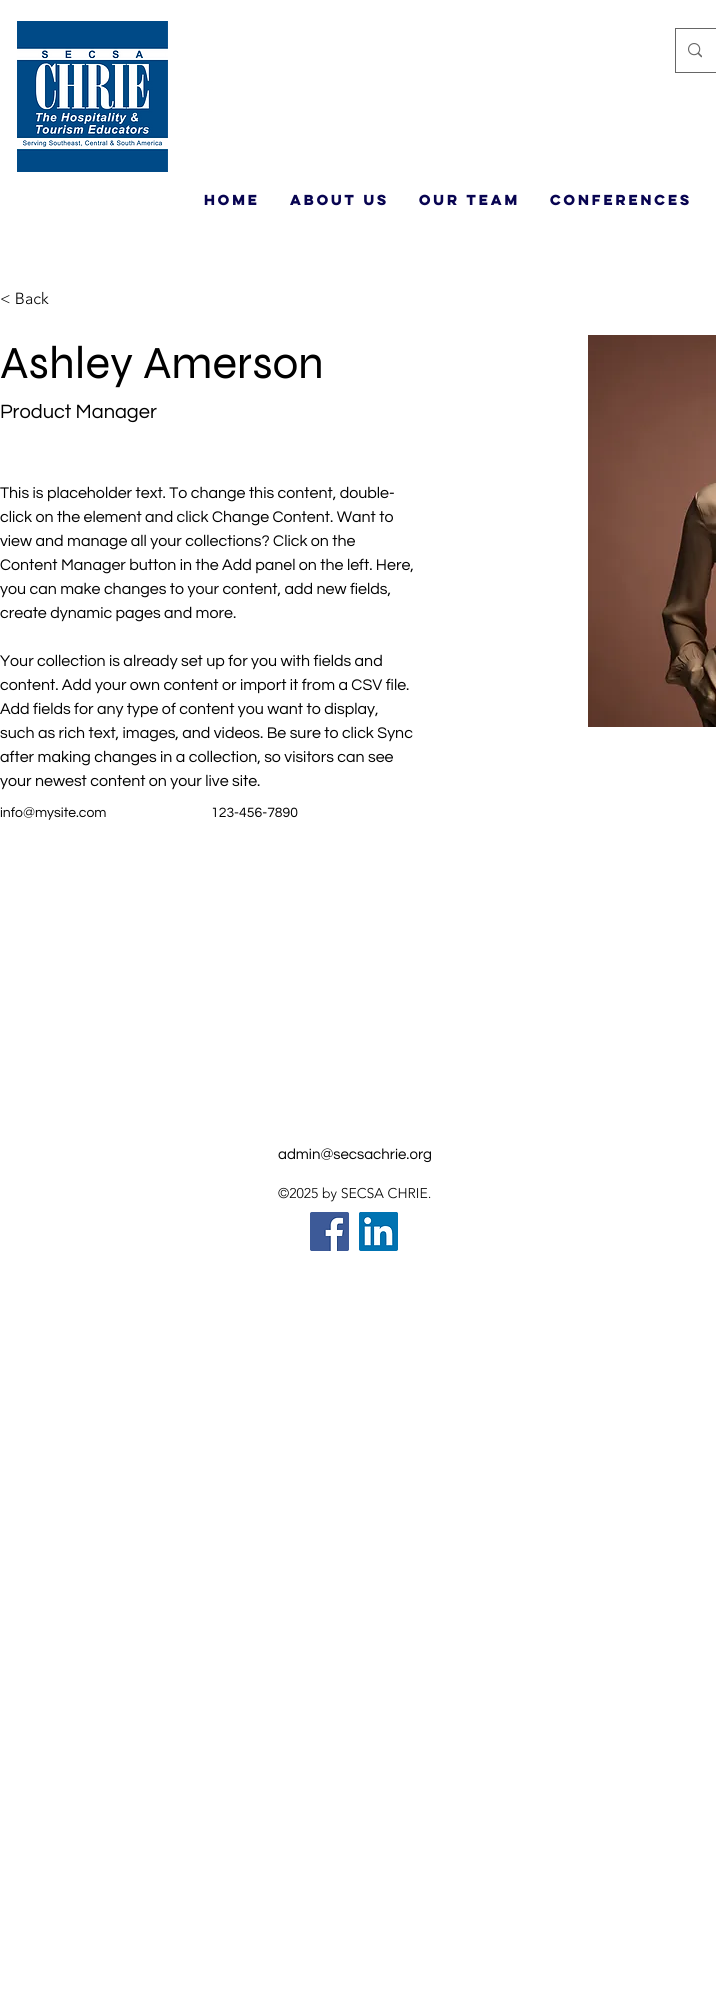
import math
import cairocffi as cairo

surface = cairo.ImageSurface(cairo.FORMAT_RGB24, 716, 2007)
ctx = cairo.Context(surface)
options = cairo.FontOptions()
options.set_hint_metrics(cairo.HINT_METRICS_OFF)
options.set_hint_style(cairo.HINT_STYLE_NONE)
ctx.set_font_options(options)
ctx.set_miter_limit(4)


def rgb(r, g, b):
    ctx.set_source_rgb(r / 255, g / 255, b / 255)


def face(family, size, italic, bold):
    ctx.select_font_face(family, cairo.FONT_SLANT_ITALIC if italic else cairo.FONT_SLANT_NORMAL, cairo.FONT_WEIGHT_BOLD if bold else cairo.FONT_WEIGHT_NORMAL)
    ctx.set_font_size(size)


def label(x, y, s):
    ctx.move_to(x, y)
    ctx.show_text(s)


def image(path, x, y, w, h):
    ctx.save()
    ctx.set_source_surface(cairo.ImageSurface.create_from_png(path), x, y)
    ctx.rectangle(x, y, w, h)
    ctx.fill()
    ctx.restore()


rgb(255, 255, 255)
ctx.paint()
image('image0.png', 17, 21, 151, 151)
ctx.rectangle(675.5, 28.5, 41, 44)
rgb(102, 102, 102)
ctx.set_line_width(1)
ctx.stroke()
image('image1.png', 688, 43, 14, 15)
face('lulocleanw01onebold', 13, 0, 1)
rgb(8, 4, 81)
label(204, 205, 'Home')
label(290, 205, 'About US')
label(419, 205, 'Our Team')
label(550, 205, 'Conferences')
face('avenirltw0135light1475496 Light', 16, 0, 0)
rgb(0, 0, 0)
label(0, 304, '< Back')
face('Syne', 46, 0, 0)
label(0, 378, 'Ashley Amerson')
face('Questrial', 20, 0, 0)
label(0, 418, 'Product Manager')
face('Questrial', 16, 0, 0)
label(0, 498, 'This is placeholder text. To change this content, double-')
label(0, 522, 'click on the element and click Change Content. Want to')
label(0, 546, 'view and manage all your collections? Click on the')
label(0, 570, 'Content Manager button in the Add panel on the left. Here,')
label(0, 594, 'you can make changes to your content, add new fields,')
label(0, 618, 'create dynamic pages and more.')
label(0, 666, 'Your collection is already set up for you with fields and')
label(0, 690, 'content. Add your own content or import it from a CSV file.')
label(0, 714, 'Add fields for any type of content you want to display,')
label(0, 738, 'such as rich text, images, and videos. Be sure to click Sync')
label(0, 762, 'after making changes in a collection, so visitors can see')
label(0, 786, 'your newest content on your live site.')
face('Questrial', 14, 0, 0)
label(0, 817, 'info@mysite.com')
label(211, 817, '123-456-7890')
image('image2.png', 588, 335, 128, 392)
face('Questrial', 15, 0, 0)
label(278, 1159, 'admin@secsachrie.org')
face('avenirltw0135light1475496 Light', 14, 0, 0)
label(278, 1198, '©2025 by SECSA CHRIE.')
image('image3.png', 310, 1212, 39, 39)
image('image4.png', 359, 1212, 39, 39)
surface.write_to_png('render.png')
